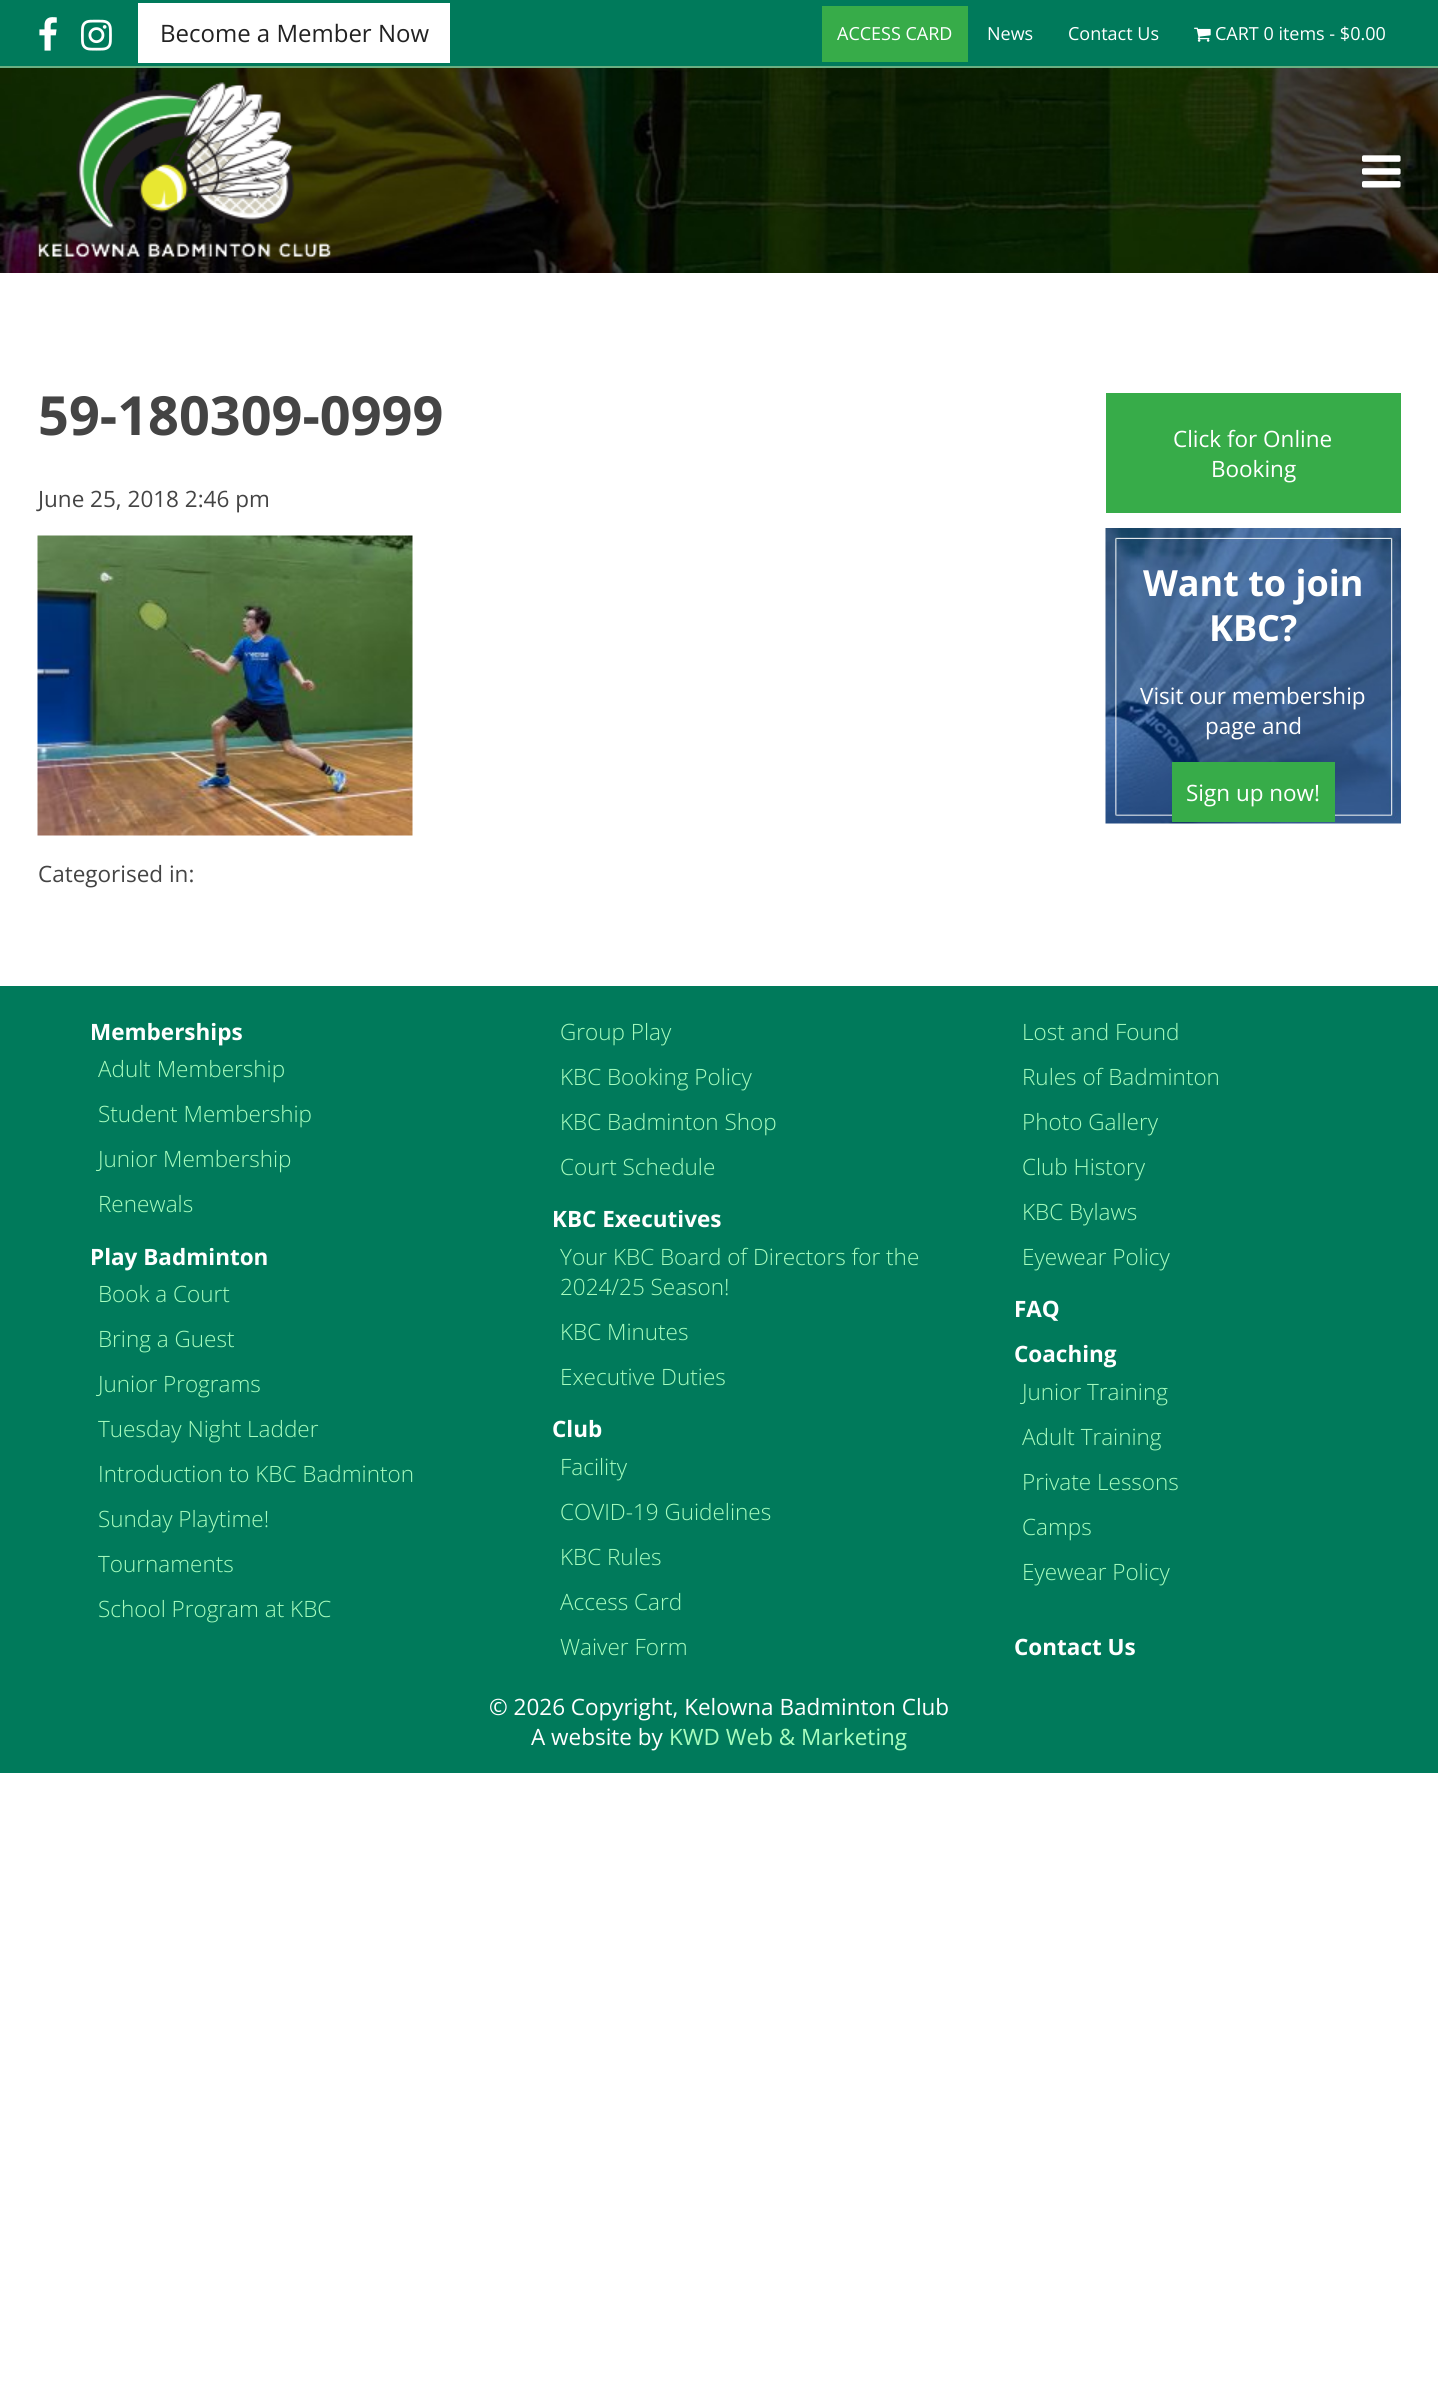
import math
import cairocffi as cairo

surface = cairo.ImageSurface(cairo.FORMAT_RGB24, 1438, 2389)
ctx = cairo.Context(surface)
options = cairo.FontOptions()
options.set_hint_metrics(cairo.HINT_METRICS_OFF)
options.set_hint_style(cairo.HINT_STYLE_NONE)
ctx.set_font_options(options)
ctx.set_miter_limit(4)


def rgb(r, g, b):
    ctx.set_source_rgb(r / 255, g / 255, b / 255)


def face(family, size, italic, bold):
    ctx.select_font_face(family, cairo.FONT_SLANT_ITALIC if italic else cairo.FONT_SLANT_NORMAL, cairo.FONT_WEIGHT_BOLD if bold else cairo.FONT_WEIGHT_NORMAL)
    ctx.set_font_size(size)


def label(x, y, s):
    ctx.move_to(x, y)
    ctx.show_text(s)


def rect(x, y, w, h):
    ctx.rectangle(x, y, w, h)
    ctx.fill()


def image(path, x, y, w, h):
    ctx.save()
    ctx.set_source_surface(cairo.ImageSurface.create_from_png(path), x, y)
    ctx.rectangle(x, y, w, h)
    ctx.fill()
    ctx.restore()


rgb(255, 255, 255)
ctx.paint()
image('image0.png', 0, 68, 1438, 205)
rgb(0, 122, 91)
rect(0, 0, 1438, 66)
rgb(106, 175, 130)
rect(0, 66, 1438, 2)
image('image1.png', 39, 17, 18, 34)
image('image2.png', 81, 19, 31, 32)
rgb(255, 255, 255)
rect(138, 3, 312, 60)
face('Open Sans', 24, 0, 0)
rgb(34, 34, 34)
label(160, 42, 'Become a Member Now')
rgb(55, 172, 73)
rect(822, 6, 146, 56)
face('Open Sans', 18, 0, 0)
rgb(255, 255, 255)
label(837, 40, 'ACCESS CARD')
label(987, 40, 'News')
label(1068, 40, 'Contact Us')
image('image3.png', 1194, 27, 17, 15)
label(1215, 40, 'CART 0 items - $0.00')
image('image4.png', 37, 82, 295, 176)
image('image5.png', 1362, 155, 39, 33)
face('Open Sans', 54, 0, 1)
rgb(68, 68, 68)
label(38, 435, '59-180309-0999')
face('Open Sans', 22.5, 0, 0)
label(38, 507, 'June 25, 2018 2:46 pm')
image('image6.png', 37, 535, 376, 301)
label(38, 882, 'Categorised in:')
rgb(55, 172, 73)
rect(1106, 393, 295, 120)
rgb(255, 255, 255)
label(1173, 447, 'Click for Online')
label(1211, 477, 'Booking')
image('image7.png', 1105, 528, 296, 296)
face('Open Sans', 36, 0, 1)
label(1143, 596, 'Want to join')
label(1209, 641, 'KBC?')
face('Open Sans', 22.5, 0, 0)
label(1140, 704, 'Visit our membership')
label(1205, 734, 'page and')
rgb(55, 172, 73)
rect(1172, 762, 163, 60)
rgb(255, 255, 255)
label(1186, 801, 'Sign up now!')
rgb(0, 122, 91)
rect(0, 986, 1438, 787)
face('Open Sans', 22.5, 0, 1)
rgb(255, 255, 255)
label(90, 1040, 'Memberships')
face('Open Sans Light', 22.5, 0, 0)
rgb(167, 253, 190)
label(98, 1077, 'Adult Membership')
label(98, 1122, 'Student Membership')
label(98, 1167, 'Junior Membership')
label(98, 1212, 'Renewals')
label(560, 1040, 'Group Play')
label(560, 1085, 'KBC Booking Policy')
label(560, 1130, 'KBC Badminton Shop')
label(560, 1175, 'Court Schedule')
label(98, 1302, 'Book a Court')
label(98, 1347, 'Bring a Guest')
label(98, 1392, 'Junior Programs')
label(98, 1437, 'Tuesday Night Ladder')
label(98, 1482, 'Introduction to KBC Badminton')
label(98, 1527, 'Sunday Playtime!')
label(98, 1572, 'Tournaments')
label(98, 1617, 'School Program at KBC')
face('Open Sans', 22.5, 0, 1)
rgb(255, 255, 255)
label(90, 1265, 'Play Badminton')
face('Open Sans Light', 22.5, 0, 0)
rgb(167, 253, 190)
label(1022, 1040, 'Lost and Found')
label(1022, 1085, 'Rules of Badminton')
label(1022, 1130, 'Photo Gallery')
label(1022, 1175, 'Club History')
label(1022, 1220, 'KBC Bylaws')
label(1022, 1265, 'Eyewear Policy')
label(560, 1475, 'Facility')
label(560, 1520, 'COVID-19 Guidelines')
label(560, 1565, 'KBC Rules')
label(560, 1610, 'Access Card')
label(560, 1655, 'Waiver Form')
face('Open Sans', 22.5, 0, 1)
rgb(255, 255, 255)
label(552, 1437, 'Club')
label(552, 1227, 'KBC Executives')
face('Open Sans Light', 22.5, 0, 0)
rgb(167, 253, 190)
label(560, 1265, 'Your KBC Board of Directors for the')
label(560, 1295, '2024/25 Season!')
label(560, 1340, 'KBC Minutes')
label(560, 1385, 'Executive Duties')
face('Open Sans', 22.5, 0, 1)
rgb(255, 255, 255)
label(1014, 1317, 'FAQ')
label(1014, 1362, 'Coaching')
face('Open Sans Light', 22.5, 0, 0)
rgb(167, 253, 190)
label(1022, 1400, 'Junior Training')
label(1022, 1445, 'Adult Training')
label(1022, 1490, 'Private Lessons')
label(1022, 1535, 'Camps')
label(1022, 1580, 'Eyewear Policy')
face('Open Sans', 22.5, 0, 1)
rgb(255, 255, 255)
label(1014, 1655, 'Contact Us')
face('Open Sans', 22.5, 0, 0)
label(489, 1715, '© 2026 Copyright, Kelowna Badminton Club')
label(531, 1745, 'A website by')
rgb(167, 253, 190)
label(669, 1745, 'KWD Web & Marketing')
surface.write_to_png('render.png')
